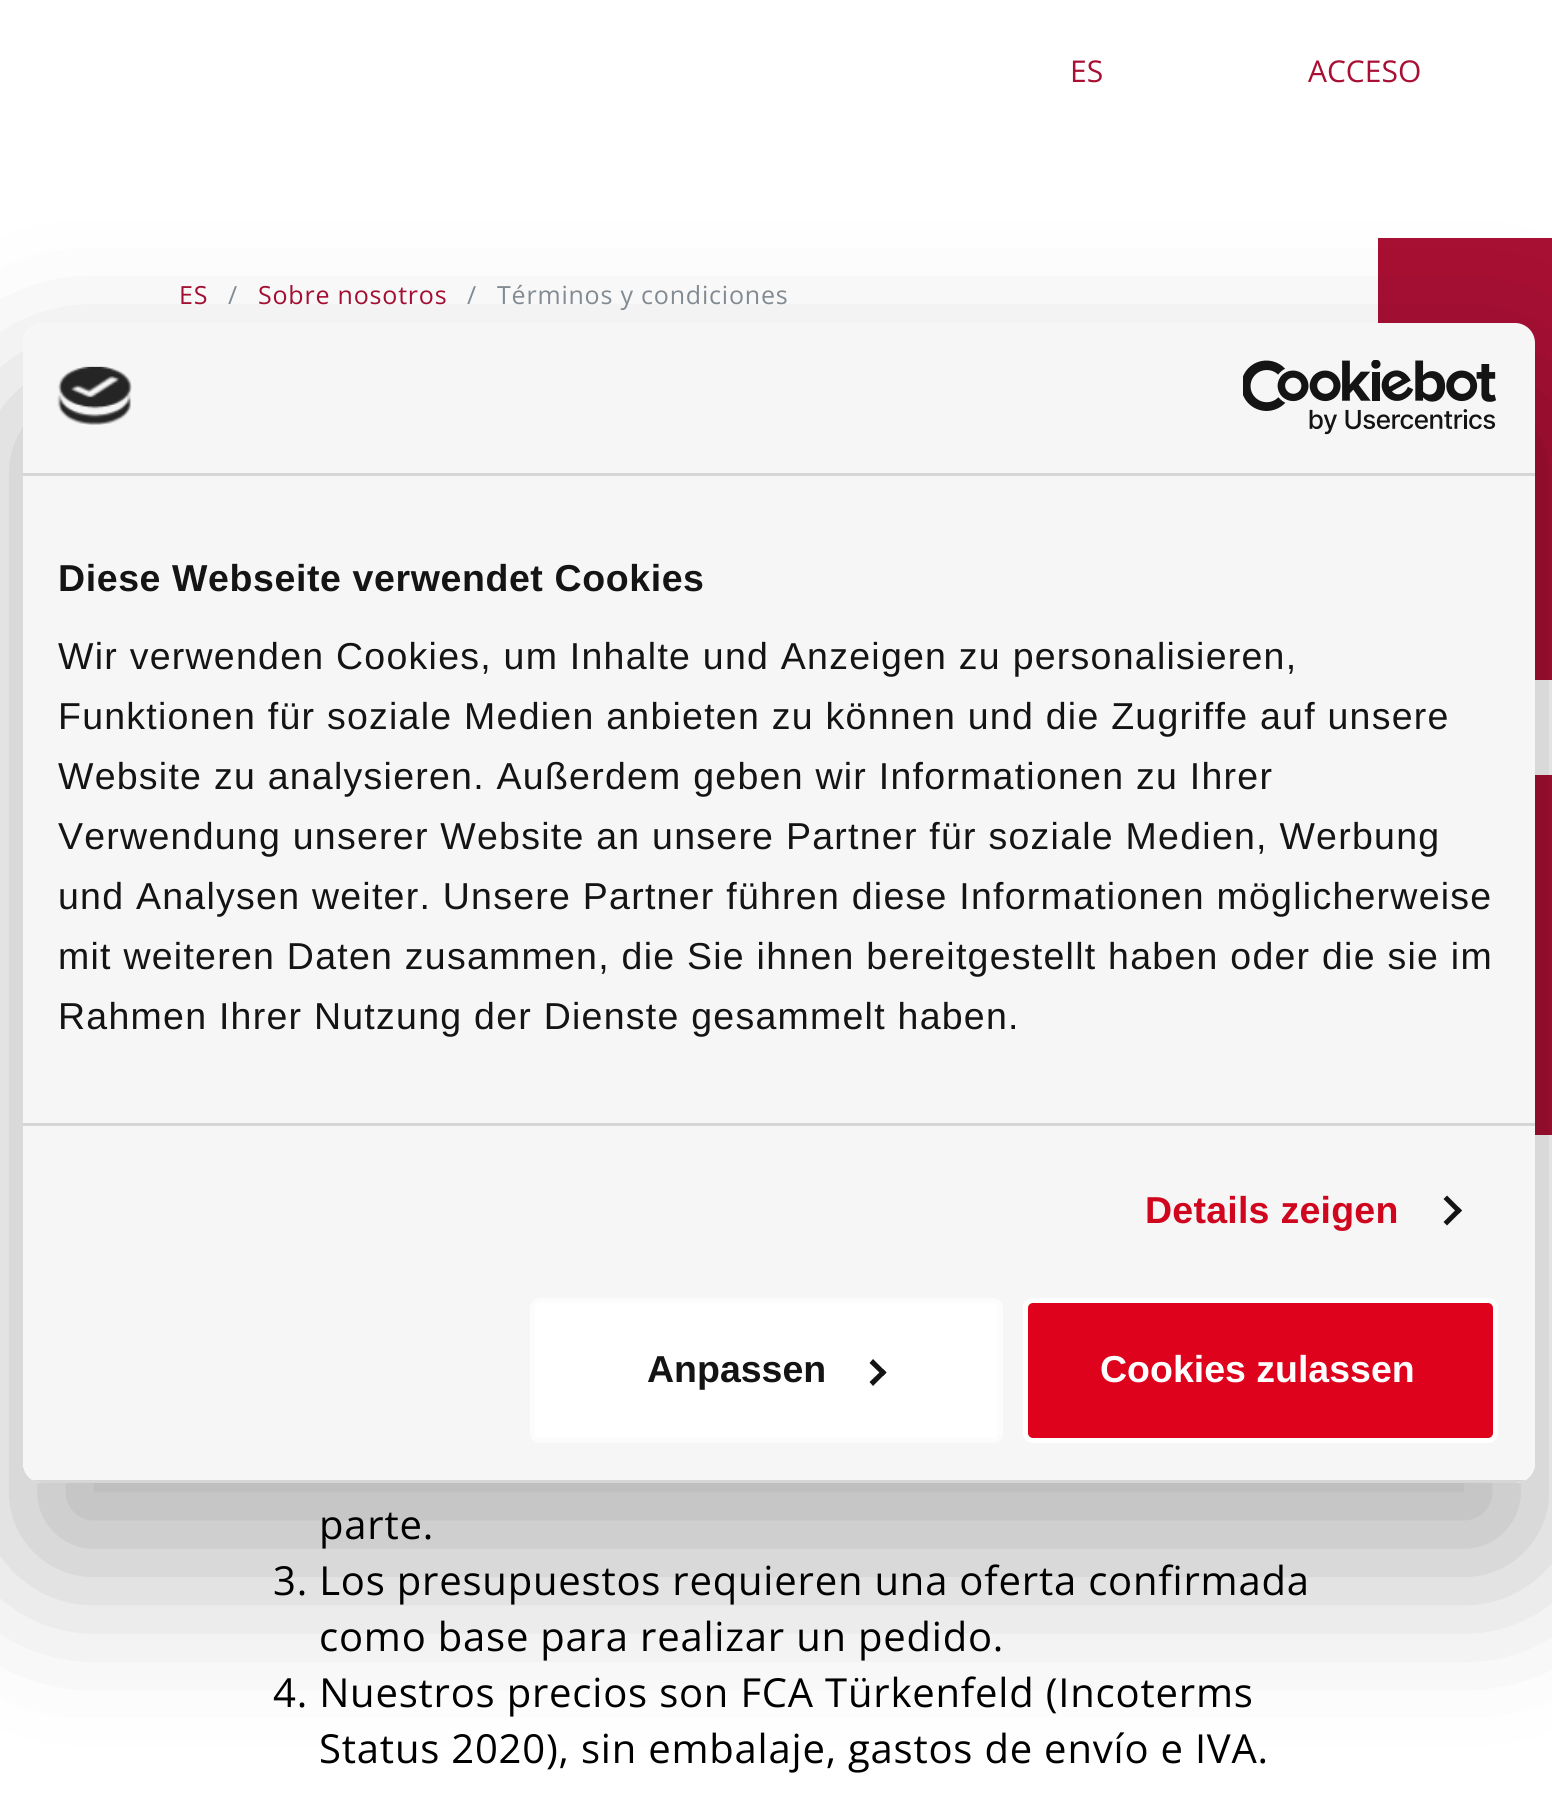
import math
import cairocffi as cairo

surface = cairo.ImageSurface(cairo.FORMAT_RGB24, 1552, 1801)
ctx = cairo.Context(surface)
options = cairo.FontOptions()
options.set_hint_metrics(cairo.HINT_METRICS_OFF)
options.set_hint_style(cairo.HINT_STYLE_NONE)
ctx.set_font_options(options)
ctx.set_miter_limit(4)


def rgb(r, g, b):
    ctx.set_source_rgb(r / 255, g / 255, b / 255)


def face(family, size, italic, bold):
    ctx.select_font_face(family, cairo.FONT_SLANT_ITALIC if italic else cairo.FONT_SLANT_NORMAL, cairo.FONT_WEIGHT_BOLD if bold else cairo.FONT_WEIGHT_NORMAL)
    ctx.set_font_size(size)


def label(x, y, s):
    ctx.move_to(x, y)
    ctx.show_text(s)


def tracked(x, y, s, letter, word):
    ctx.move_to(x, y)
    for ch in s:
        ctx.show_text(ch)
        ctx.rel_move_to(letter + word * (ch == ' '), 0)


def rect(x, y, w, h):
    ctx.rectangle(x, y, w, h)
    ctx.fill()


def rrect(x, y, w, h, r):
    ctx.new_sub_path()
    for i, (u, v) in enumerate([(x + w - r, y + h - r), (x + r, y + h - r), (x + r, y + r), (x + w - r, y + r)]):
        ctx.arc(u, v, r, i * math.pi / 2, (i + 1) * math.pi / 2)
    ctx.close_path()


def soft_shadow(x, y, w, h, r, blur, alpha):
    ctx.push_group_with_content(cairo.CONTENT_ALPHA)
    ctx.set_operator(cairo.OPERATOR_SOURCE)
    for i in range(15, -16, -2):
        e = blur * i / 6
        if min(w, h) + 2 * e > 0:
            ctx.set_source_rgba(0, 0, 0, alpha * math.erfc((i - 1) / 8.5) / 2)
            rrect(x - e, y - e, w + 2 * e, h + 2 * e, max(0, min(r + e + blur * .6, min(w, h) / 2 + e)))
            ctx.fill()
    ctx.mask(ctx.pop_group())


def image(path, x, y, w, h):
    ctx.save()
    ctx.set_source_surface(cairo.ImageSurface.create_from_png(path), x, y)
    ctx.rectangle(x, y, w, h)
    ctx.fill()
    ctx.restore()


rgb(255, 255, 255)
ctx.paint()
face('Open Sans', 30, 0, 0)
rgb(168, 15, 51)
label(1070, 82, 'ES')
label(1308, 82, 'ACCESO')
rect(1378, 238, 174, 167)
rect(1535, 405, 17, 275)
rect(1535, 775, 17, 360)
face('Open Sans', 25, 0, 0)
tracked(179, 304, 'ES', 0.8, 0)
rgb(134, 142, 150)
tracked(228, 304, '/', 0.8, 0)
rgb(168, 15, 51)
tracked(258, 304, 'Sobre nosotros', 0.8, 0)
rgb(134, 142, 150)
tracked(467, 304, '/', 0.8, 0)
tracked(497, 304, 'Términos y condiciones', 0.8, 0)
face('Open Sans', 40, 0, 0)
rgb(0, 0, 0)
tracked(319, 1539, 'parte.', 0.8, 0)
tracked(273, 1595, '3. Los presupuestos requieren una oferta confirmada', 0.8, 0)
tracked(319, 1651, 'como base para realizar un pedido.', 0.8, 0)
tracked(273, 1707, '4. Nuestros precios son FCA Türkenfeld (Incoterms', 0.8, 0)
tracked(319, 1763, 'Status 2020), sin embalaje, gastos de envío e IVA.', 0.8, 0)
ctx.save()
ctx.set_fill_rule(cairo.FILL_RULE_EVEN_ODD)
ctx.new_path()
ctx.move_to(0, 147)
ctx.line_to(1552, 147)
ctx.line_to(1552, 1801)
ctx.line_to(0, 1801)
ctx.close_path()
ctx.move_to(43, 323)
ctx.line_to(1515, 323)
ctx.curve_to(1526, 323, 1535, 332, 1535, 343)
ctx.line_to(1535, 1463)
ctx.curve_to(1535, 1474, 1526, 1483, 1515, 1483)
ctx.line_to(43, 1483)
ctx.curve_to(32, 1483, 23, 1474, 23, 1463)
ctx.line_to(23, 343)
ctx.curve_to(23, 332, 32, 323, 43, 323)
ctx.close_path()
ctx.clip()
rgb(0, 0, 0)
soft_shadow(23, 403, 1512, 1160, 20, 85, 0.3)
ctx.restore()
rgb(246, 246, 246)
rrect(23, 323, 1512, 1160, 20)
ctx.fill()
rgb(214, 214, 214)
rect(23, 473, 1512, 3)
image('image0.png', 57, 366, 75, 59)
image('image1.png', 1243, 360, 253, 75)
rect(23, 1123, 1512, 3)
face('Liberation Sans', 37.5, 0, 1)
rgb(20, 20, 20)
tracked(58, 591, 'Diese Webseite verwendet Cookies', 0.6, 0)
face('Liberation Sans', 37.5, 0, 0)
tracked(58, 669, 'Wir verwenden Cookies, um Inhalte und Anzeigen zu personalisieren,', 1.25, 0)
tracked(58, 729, 'Funktionen für soziale Medien anbieten zu können und die Zugriffe auf unsere', 1.25, 0)
tracked(58, 789, 'Website zu analysieren. Außerdem geben wir Informationen zu Ihrer', 1.25, 0)
tracked(58, 849, 'Verwendung unserer Website an unsere Partner für soziale Medien, Werbung', 1.25, 0)
tracked(58, 909, 'und Analysen weiter. Unsere Partner führen diese Informationen möglicherweise', 1.25, 0)
tracked(58, 969, 'mit weiteren Daten zusammen, die Sie ihnen bereitgestellt haben oder die sie im', 1.25, 0)
tracked(58, 1029, 'Rahmen Ihrer Nutzung der Dienste gesammelt haben.', 1.25, 0)
face('Liberation Sans', 37.5, 0, 1)
rgb(207, 6, 30)
tracked(1145, 1223, 'Details zeigen', 0.25, 0)
rgb(20, 20, 20)
ctx.new_path()
ctx.move_to(1447, 1195.5)
ctx.line_to(1462, 1210.5)
ctx.line_to(1458.5, 1214)
ctx.line_to(1443.5, 1199)
ctx.close_path()
ctx.fill()
ctx.new_path()
ctx.move_to(1458.5, 1207)
ctx.line_to(1462, 1210.5)
ctx.line_to(1447, 1225.5)
ctx.line_to(1443.5, 1222)
ctx.close_path()
ctx.fill()
ctx.save()
rrect(23, 323, 1512, 1160, 20)
ctx.clip()
rgb(214, 214, 214)
rect(32, 1480, 1494, 3)
ctx.restore()
rgb(255, 255, 255)
rrect(532.5, 1300.5, 468, 140, 7.5)
ctx.fill_preserve()
rgb(252, 252, 252)
ctx.set_line_width(5)
ctx.stroke()
rgb(20, 20, 20)
label(647, 1382, 'Anpassen')
ctx.new_path()
ctx.move_to(873, 1359)
ctx.line_to(886.5, 1372.5)
ctx.line_to(883, 1376)
ctx.line_to(869.5, 1363)
ctx.close_path()
ctx.fill()
ctx.new_path()
ctx.move_to(883, 1369)
ctx.line_to(886.5, 1372.5)
ctx.line_to(873, 1386)
ctx.line_to(869.5, 1382)
ctx.close_path()
ctx.fill()
rgb(223, 2, 28)
rrect(1025.5, 1300.5, 470, 140, 7.5)
ctx.fill_preserve()
rgb(255, 255, 255)
ctx.stroke()
label(1100, 1382, 'Cookies zulassen')
surface.write_to_png('render.png')
